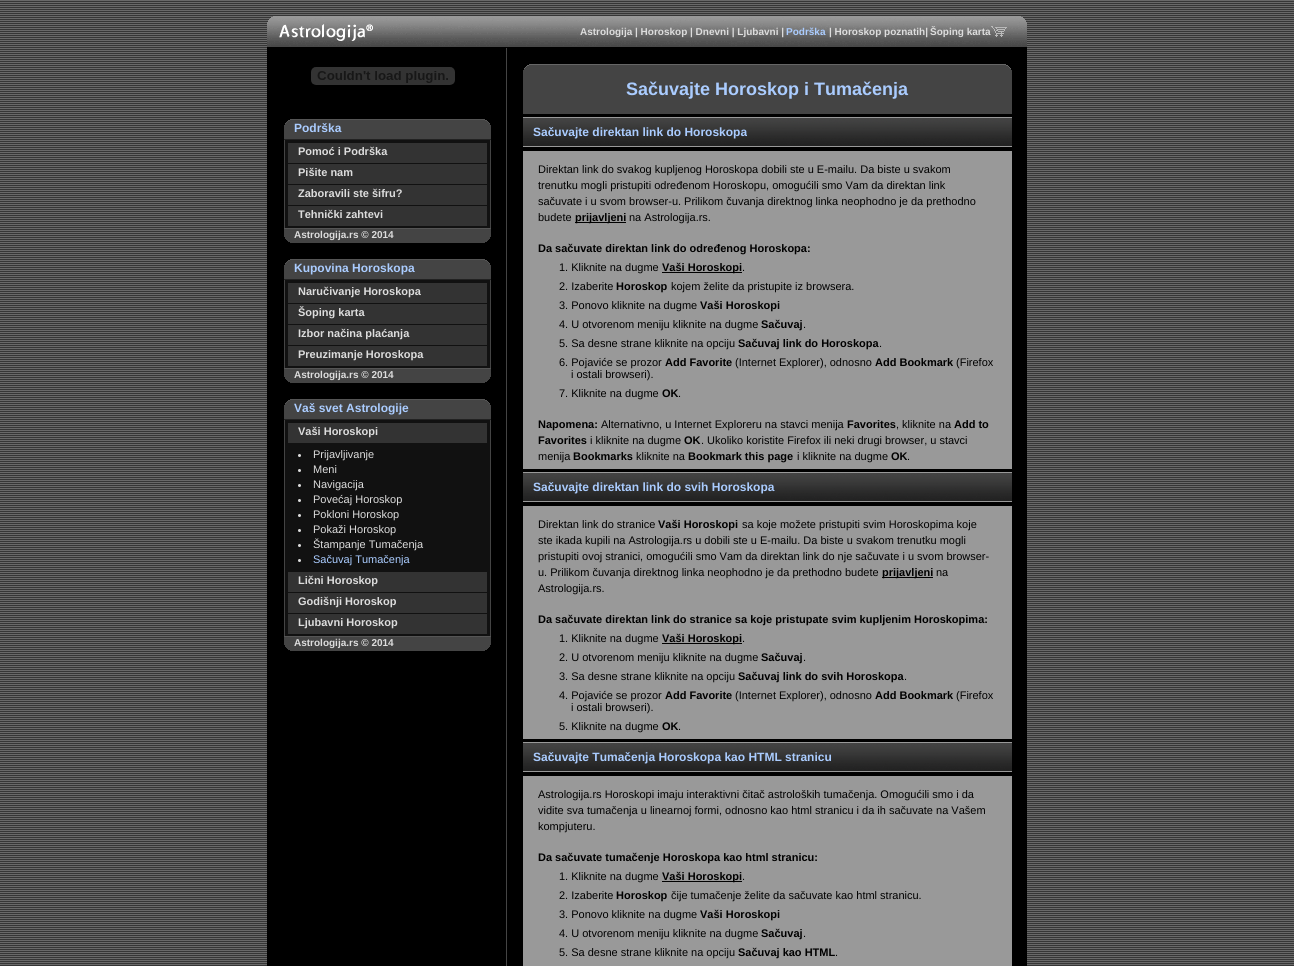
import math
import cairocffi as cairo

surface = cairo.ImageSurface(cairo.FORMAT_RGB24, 1294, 966)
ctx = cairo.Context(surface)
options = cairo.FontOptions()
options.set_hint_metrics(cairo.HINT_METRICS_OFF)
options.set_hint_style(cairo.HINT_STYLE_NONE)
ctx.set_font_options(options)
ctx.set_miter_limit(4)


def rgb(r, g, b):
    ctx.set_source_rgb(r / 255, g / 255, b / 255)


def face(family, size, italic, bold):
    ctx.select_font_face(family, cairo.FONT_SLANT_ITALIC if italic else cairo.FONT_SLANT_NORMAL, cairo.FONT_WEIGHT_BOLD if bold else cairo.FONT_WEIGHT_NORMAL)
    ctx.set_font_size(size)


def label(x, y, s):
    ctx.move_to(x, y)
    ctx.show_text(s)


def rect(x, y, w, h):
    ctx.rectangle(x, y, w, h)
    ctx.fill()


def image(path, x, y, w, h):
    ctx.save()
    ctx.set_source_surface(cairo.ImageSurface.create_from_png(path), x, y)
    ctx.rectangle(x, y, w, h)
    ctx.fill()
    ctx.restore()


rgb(255, 255, 255)
ctx.paint()
image('image0.png', 0, 0, 1294, 16)
image('image1.png', 0, 16, 1294, 950)
image('image2.png', 267, 16, 760, 32)
face('Liberation Sans', 10, 0, 1)
rgb(221, 221, 221)
label(580, 35, 'Astrologija | Horoskop | Dnevni | Ljubavni |')
rgb(170, 204, 255)
label(786, 35, 'Podrška')
rgb(221, 221, 221)
label(829, 35, '| Horoskop poznatih|')
image('image3.png', 991, 26, 16, 11)
label(930, 35, 'Šoping karta')
rgb(0, 0, 0)
rect(507, 48, 520, 918)
rect(267, 48, 239, 918)
rgb(68, 68, 68)
rect(506, 48, 1, 918)
image('image4.png', 311, 67, 144, 18)
rect(284, 120, 207, 19)
image('image5.png', 284, 119, 207, 6)
rgb(34, 34, 34)
rect(284, 139, 207, 1)
face('Liberation Sans', 12, 0, 1)
rgb(170, 204, 255)
label(294, 132, 'Podrška')
rgb(17, 17, 17)
rect(285, 140, 205, 88)
rgb(68, 68, 68)
rect(490, 140, 1, 88)
rect(284, 140, 1, 88)
rgb(51, 51, 51)
rect(288, 143, 199, 20)
face('Liberation Sans', 11, 0, 1)
rgb(221, 221, 221)
label(298, 155, 'Pomoć i Podrška')
rgb(51, 51, 51)
rect(288, 164, 199, 20)
rgb(221, 221, 221)
label(298, 176, 'Pišite nam')
rgb(51, 51, 51)
rect(288, 185, 199, 20)
rgb(221, 221, 221)
label(298, 197, 'Zaboravili ste šifru?')
rgb(51, 51, 51)
rect(288, 206, 199, 20)
rgb(221, 221, 221)
label(298, 218, 'Tehnički zahtevi')
rgb(68, 68, 68)
rect(284, 229, 207, 14)
image('image6.png', 284, 237, 207, 6)
rgb(85, 85, 85)
rect(284, 228, 207, 1)
face('Liberation Sans', 10, 0, 1)
rgb(221, 221, 221)
label(294, 238, 'Astrologija.rs © 2014')
rgb(68, 68, 68)
rect(284, 260, 207, 19)
image('image5.png', 284, 259, 207, 6)
rgb(34, 34, 34)
rect(284, 279, 207, 1)
face('Liberation Sans', 12, 0, 1)
rgb(170, 204, 255)
label(294, 272, 'Kupovina Horoskopa')
rgb(17, 17, 17)
rect(285, 280, 205, 88)
rgb(68, 68, 68)
rect(490, 280, 1, 88)
rect(284, 280, 1, 88)
rgb(51, 51, 51)
rect(288, 283, 199, 20)
face('Liberation Sans', 11, 0, 1)
rgb(221, 221, 221)
label(298, 295, 'Naručivanje Horoskopa')
rgb(51, 51, 51)
rect(288, 304, 199, 20)
rgb(221, 221, 221)
label(298, 316, 'Šoping karta')
rgb(51, 51, 51)
rect(288, 325, 199, 20)
rgb(221, 221, 221)
label(298, 337, 'Izbor načina plaćanja')
rgb(51, 51, 51)
rect(288, 346, 199, 20)
rgb(221, 221, 221)
label(298, 358, 'Preuzimanje Horoskopa')
rgb(68, 68, 68)
rect(284, 369, 207, 14)
image('image6.png', 284, 377, 207, 6)
rgb(85, 85, 85)
rect(284, 368, 207, 1)
face('Liberation Sans', 10, 0, 1)
rgb(221, 221, 221)
label(294, 378, 'Astrologija.rs © 2014')
rgb(68, 68, 68)
rect(284, 400, 207, 19)
image('image5.png', 284, 399, 207, 6)
rgb(34, 34, 34)
rect(284, 419, 207, 1)
face('Liberation Sans', 12, 0, 1)
rgb(170, 204, 255)
label(294, 412, 'Vaš svet Astrologije')
rgb(17, 17, 17)
rect(285, 420, 205, 216)
rgb(68, 68, 68)
rect(490, 420, 1, 216)
rect(284, 420, 1, 216)
rgb(51, 51, 51)
rect(288, 423, 199, 20)
face('Liberation Sans', 11, 0, 1)
rgb(221, 221, 221)
label(298, 435, 'Vaši Horoskopi')
ctx.new_path()
ctx.arc(299.5, 455.5, 1.5, 0, 2 * math.pi)
ctx.fill()
face('Liberation Sans', 11, 0, 0)
label(313, 458, 'Prijavljivanje')
ctx.new_path()
ctx.arc(299.5, 470.5, 1.5, 0, 2 * math.pi)
ctx.fill()
label(313, 473, 'Meni')
ctx.new_path()
ctx.arc(299.5, 485.5, 1.5, 0, 2 * math.pi)
ctx.fill()
label(313, 488, 'Navigacija')
ctx.new_path()
ctx.arc(299.5, 500.5, 1.5, 0, 2 * math.pi)
ctx.fill()
label(313, 503, 'Povećaj Horoskop')
ctx.new_path()
ctx.arc(299.5, 515.5, 1.5, 0, 2 * math.pi)
ctx.fill()
label(313, 518, 'Pokloni Horoskop')
ctx.new_path()
ctx.arc(299.5, 530.5, 1.5, 0, 2 * math.pi)
ctx.fill()
label(313, 533, 'Pokaži Horoskop')
ctx.new_path()
ctx.arc(299.5, 545.5, 1.5, 0, 2 * math.pi)
ctx.fill()
label(313, 548, 'Štampanje Tumačenja')
ctx.new_path()
ctx.arc(299.5, 560.5, 1.5, 0, 2 * math.pi)
ctx.fill()
rgb(170, 204, 255)
label(313, 563, 'Sačuvaj Tumačenja')
rgb(51, 51, 51)
rect(288, 572, 199, 20)
face('Liberation Sans', 11, 0, 1)
rgb(221, 221, 221)
label(298, 584, 'Lični Horoskop')
rgb(51, 51, 51)
rect(288, 593, 199, 20)
rgb(221, 221, 221)
label(298, 605, 'Godišnji Horoskop')
rgb(51, 51, 51)
rect(288, 614, 199, 20)
rgb(221, 221, 221)
label(298, 626, 'Ljubavni Horoskop')
rgb(68, 68, 68)
rect(284, 637, 207, 14)
image('image6.png', 284, 645, 207, 6)
rgb(85, 85, 85)
rect(284, 636, 207, 1)
face('Liberation Sans', 10, 0, 1)
rgb(221, 221, 221)
label(294, 646, 'Astrologija.rs © 2014')
rgb(153, 153, 153)
rect(523, 151, 489, 815)
rgb(68, 68, 68)
rect(523, 65, 489, 49)
image('image7.png', 523, 64, 489, 6)
face('Liberation Sans', 18, 0, 1)
rgb(170, 204, 255)
label(626, 95, 'Sačuvajte Horoskop i Tumačenja')
image('image8.png', 523, 117, 489, 31)
face('Liberation Sans', 12, 0, 1)
label(533, 136, 'Sačuvajte direktan link do Horoskopa')
face('Liberation Sans', 11, 0, 0)
rgb(0, 0, 0)
label(538, 173, 'Direktan link do svakog kupljenog Horoskopa dobili ste u E-mailu. Da biste u svakom')
label(538, 189, 'trenutku mogli pristupiti određenom Horoskopu, omogućili smo Vam da direktan link')
label(538, 205, 'sačuvate i u svom browser-u. Prilikom čuvanja direktnog linka neophodno je da prethodno')
label(538, 221, 'budete')
rect(575, 222, 51, 1)
face('Liberation Sans', 11, 0, 1)
label(575, 221, 'prijavljeni')
face('Liberation Sans', 11, 0, 0)
label(629, 221, 'na Astrologija.rs.')
face('Liberation Sans', 11, 0, 1)
label(538, 252, 'Da sačuvate direktan link do određenog Horoskopa:')
face('Liberation Sans', 11, 0, 0)
label(559, 271, '1. Kliknite na dugme')
rect(662, 272, 80, 1)
face('Liberation Sans', 11, 0, 1)
label(662, 271, 'Vaši Horoskopi')
face('Liberation Sans', 11, 0, 0)
label(742, 271, '.')
label(559, 290, '2. Izaberite')
face('Liberation Sans', 11, 0, 1)
label(616, 290, 'Horoskop')
face('Liberation Sans', 11, 0, 0)
label(671, 290, 'kojem želite da pristupite iz browsera.')
label(559, 309, '3. Ponovo kliknite na dugme')
face('Liberation Sans', 11, 0, 1)
label(700, 309, 'Vaši Horoskopi')
face('Liberation Sans', 11, 0, 0)
label(559, 328, '4. U otvorenom meniju kliknite na dugme')
face('Liberation Sans', 11, 0, 1)
label(761, 328, 'Sačuvaj')
face('Liberation Sans', 11, 0, 0)
label(803, 328, '.')
label(559, 347, '5. Sa desne strane kliknite na opciju')
face('Liberation Sans', 11, 0, 1)
label(738, 347, 'Sačuvaj link do Horoskopa')
face('Liberation Sans', 11, 0, 0)
label(879, 347, '.')
label(559, 366, '6. Pojaviće se prozor')
face('Liberation Sans', 11, 0, 1)
label(665, 366, 'Add Favorite')
face('Liberation Sans', 11, 0, 0)
label(735, 366, '(Internet Explorer), odnosno')
face('Liberation Sans', 11, 0, 1)
label(875, 366, 'Add Bookmark')
face('Liberation Sans', 11, 0, 0)
label(956, 366, '(Firefox')
label(571, 378, 'i ostali browseri).')
label(559, 397, '7. Kliknite na dugme')
face('Liberation Sans', 11, 0, 1)
label(662, 397, 'OK')
face('Liberation Sans', 11, 0, 0)
label(678, 397, '.')
face('Liberation Sans', 11, 0, 1)
label(538, 428, 'Napomena:')
face('Liberation Sans', 11, 0, 0)
label(601, 428, 'Alternativno, u Internet Exploreru na stavci menija')
face('Liberation Sans', 11, 0, 1)
label(847, 428, 'Favorites')
face('Liberation Sans', 11, 0, 0)
label(896, 428, ', kliknite na')
face('Liberation Sans', 11, 0, 1)
label(954, 428, 'Add to')
label(538, 444, 'Favorites')
face('Liberation Sans', 11, 0, 0)
label(590, 444, 'i kliknite na dugme')
face('Liberation Sans', 11, 0, 1)
label(684, 444, 'OK')
face('Liberation Sans', 11, 0, 0)
label(701, 444, '. Ukoliko koristite Firefox ili neki drugi browser, u stavci')
label(538, 460, 'menija')
face('Liberation Sans', 11, 0, 1)
label(573, 460, 'Bookmarks')
face('Liberation Sans', 11, 0, 0)
label(636, 460, 'kliknite na')
face('Liberation Sans', 11, 0, 1)
label(688, 460, 'Bookmark this page')
face('Liberation Sans', 11, 0, 0)
label(797, 460, 'i kliknite na dugme')
face('Liberation Sans', 11, 0, 1)
label(891, 460, 'OK')
face('Liberation Sans', 11, 0, 0)
label(907, 460, '.')
image('image8.png', 523, 472, 489, 31)
rect(523, 469, 489, 3)
rect(523, 503, 489, 3)
face('Liberation Sans', 12, 0, 1)
rgb(170, 204, 255)
label(533, 491, 'Sačuvajte direktan link do svih Horoskopa')
face('Liberation Sans', 11, 0, 0)
rgb(0, 0, 0)
label(538, 528, 'Direktan link do stranice')
face('Liberation Sans', 11, 0, 1)
label(658, 528, 'Vaši Horoskopi')
face('Liberation Sans', 11, 0, 0)
label(742, 528, 'sa koje možete pristupiti svim Horoskopima koje')
label(538, 544, 'ste ikada kupili na Astrologija.rs u dobili ste u E-mailu. Da biste u svakom trenutku mogli')
label(538, 560, 'pristupiti ovoj stranici, omogućili smo Vam da direktan link do nje sačuvate i u svom browser-')
label(538, 576, 'u. Prilikom čuvanja direktnog linka neophodno je da prethodno budete')
rect(882, 577, 51, 1)
face('Liberation Sans', 11, 0, 1)
label(882, 576, 'prijavljeni')
face('Liberation Sans', 11, 0, 0)
label(936, 576, 'na')
label(538, 592, 'Astrologija.rs.')
face('Liberation Sans', 11, 0, 1)
label(538, 623, 'Da sačuvate direktan link do stranice sa koje pristupate svim kupljenim Horoskopima:')
face('Liberation Sans', 11, 0, 0)
label(559, 642, '1. Kliknite na dugme')
rect(662, 643, 80, 1)
face('Liberation Sans', 11, 0, 1)
label(662, 642, 'Vaši Horoskopi')
face('Liberation Sans', 11, 0, 0)
label(742, 642, '.')
label(559, 661, '2. U otvorenom meniju kliknite na dugme')
face('Liberation Sans', 11, 0, 1)
label(761, 661, 'Sačuvaj')
face('Liberation Sans', 11, 0, 0)
label(803, 661, '.')
label(559, 680, '3. Sa desne strane kliknite na opciju')
face('Liberation Sans', 11, 0, 1)
label(738, 680, 'Sačuvaj link do svih Horoskopa')
face('Liberation Sans', 11, 0, 0)
label(904, 680, '.')
label(559, 699, '4. Pojaviće se prozor')
face('Liberation Sans', 11, 0, 1)
label(665, 699, 'Add Favorite')
face('Liberation Sans', 11, 0, 0)
label(735, 699, '(Internet Explorer), odnosno')
face('Liberation Sans', 11, 0, 1)
label(875, 699, 'Add Bookmark')
face('Liberation Sans', 11, 0, 0)
label(956, 699, '(Firefox')
label(571, 711, 'i ostali browseri).')
label(559, 730, '5. Kliknite na dugme')
face('Liberation Sans', 11, 0, 1)
label(662, 730, 'OK')
face('Liberation Sans', 11, 0, 0)
label(678, 730, '.')
image('image8.png', 523, 742, 489, 31)
rect(523, 739, 489, 3)
rect(523, 773, 489, 3)
face('Liberation Sans', 12, 0, 1)
rgb(170, 204, 255)
label(533, 761, 'Sačuvajte Tumačenja Horoskopa kao HTML stranicu')
face('Liberation Sans', 11, 0, 0)
rgb(0, 0, 0)
label(538, 798, 'Astrologija.rs Horoskopi imaju interaktivni čitač astroloških tumačenja. Omogućili smo i da')
label(538, 814, 'vidite sva tumačenja u linearnoj formi, odnosno kao html stranicu i da ih sačuvate na Vašem')
label(538, 830, 'kompjuteru.')
face('Liberation Sans', 11, 0, 1)
label(538, 861, 'Da sačuvate tumačenje Horoskopa kao html stranicu:')
face('Liberation Sans', 11, 0, 0)
label(559, 880, '1. Kliknite na dugme')
rect(662, 881, 80, 1)
face('Liberation Sans', 11, 0, 1)
label(662, 880, 'Vaši Horoskopi')
face('Liberation Sans', 11, 0, 0)
label(742, 880, '.')
label(559, 899, '2. Izaberite')
face('Liberation Sans', 11, 0, 1)
label(616, 899, 'Horoskop')
face('Liberation Sans', 11, 0, 0)
label(671, 899, 'čije tumačenje želite da sačuvate kao html stranicu.')
label(559, 918, '3. Ponovo kliknite na dugme')
face('Liberation Sans', 11, 0, 1)
label(700, 918, 'Vaši Horoskopi')
face('Liberation Sans', 11, 0, 0)
label(559, 937, '4. U otvorenom meniju kliknite na dugme')
face('Liberation Sans', 11, 0, 1)
label(761, 937, 'Sačuvaj')
face('Liberation Sans', 11, 0, 0)
label(803, 937, '.')
label(559, 956, '5. Sa desne strane kliknite na opciju')
face('Liberation Sans', 11, 0, 1)
label(738, 956, 'Sačuvaj kao HTML')
face('Liberation Sans', 11, 0, 0)
label(835, 956, '.')
surface.write_to_png('render.png')
